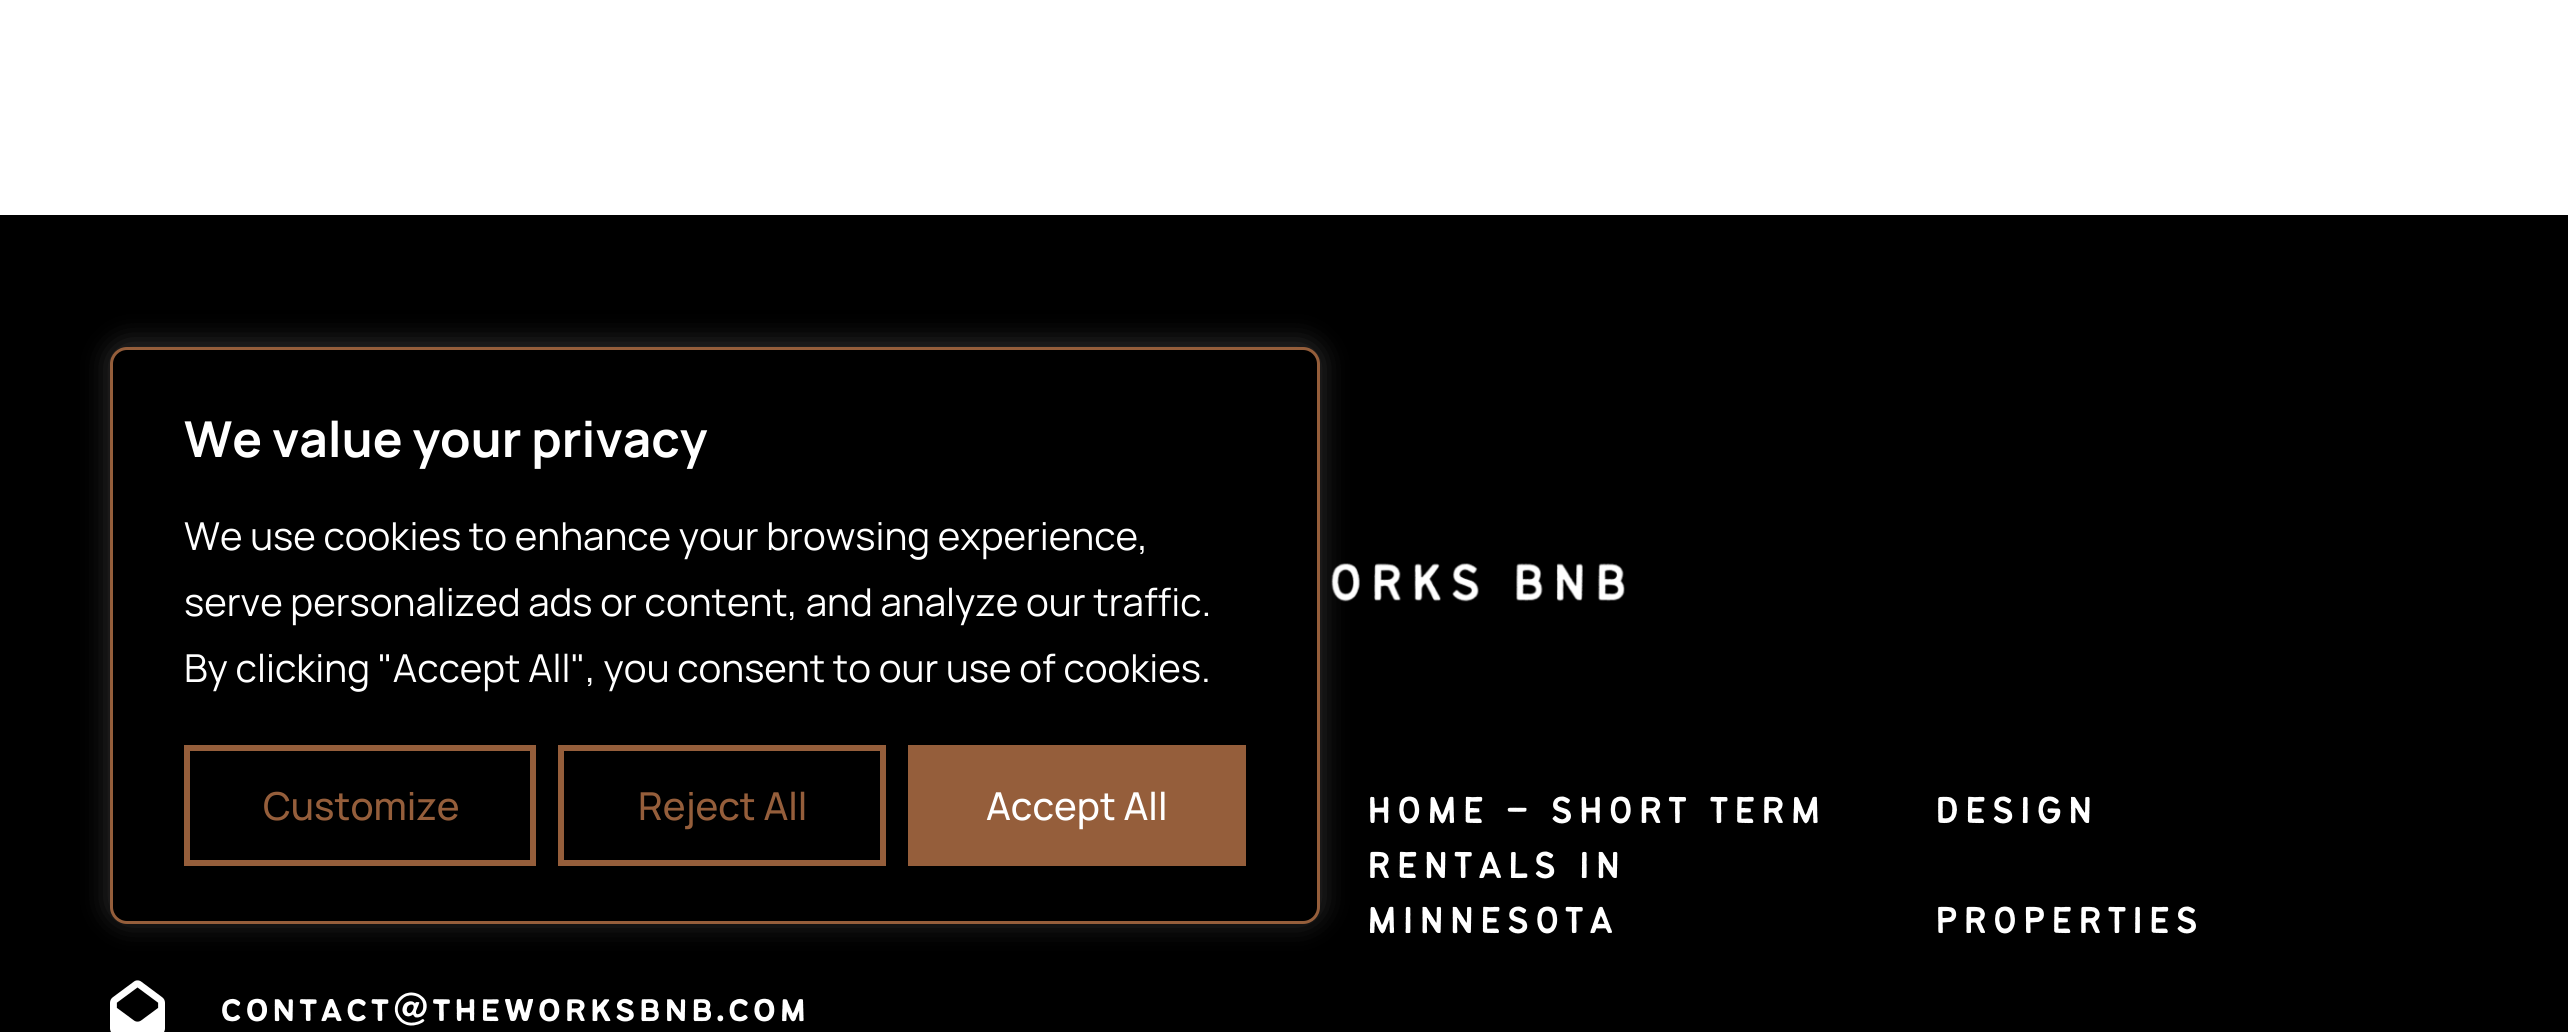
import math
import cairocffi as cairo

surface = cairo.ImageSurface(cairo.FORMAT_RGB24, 2568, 1032)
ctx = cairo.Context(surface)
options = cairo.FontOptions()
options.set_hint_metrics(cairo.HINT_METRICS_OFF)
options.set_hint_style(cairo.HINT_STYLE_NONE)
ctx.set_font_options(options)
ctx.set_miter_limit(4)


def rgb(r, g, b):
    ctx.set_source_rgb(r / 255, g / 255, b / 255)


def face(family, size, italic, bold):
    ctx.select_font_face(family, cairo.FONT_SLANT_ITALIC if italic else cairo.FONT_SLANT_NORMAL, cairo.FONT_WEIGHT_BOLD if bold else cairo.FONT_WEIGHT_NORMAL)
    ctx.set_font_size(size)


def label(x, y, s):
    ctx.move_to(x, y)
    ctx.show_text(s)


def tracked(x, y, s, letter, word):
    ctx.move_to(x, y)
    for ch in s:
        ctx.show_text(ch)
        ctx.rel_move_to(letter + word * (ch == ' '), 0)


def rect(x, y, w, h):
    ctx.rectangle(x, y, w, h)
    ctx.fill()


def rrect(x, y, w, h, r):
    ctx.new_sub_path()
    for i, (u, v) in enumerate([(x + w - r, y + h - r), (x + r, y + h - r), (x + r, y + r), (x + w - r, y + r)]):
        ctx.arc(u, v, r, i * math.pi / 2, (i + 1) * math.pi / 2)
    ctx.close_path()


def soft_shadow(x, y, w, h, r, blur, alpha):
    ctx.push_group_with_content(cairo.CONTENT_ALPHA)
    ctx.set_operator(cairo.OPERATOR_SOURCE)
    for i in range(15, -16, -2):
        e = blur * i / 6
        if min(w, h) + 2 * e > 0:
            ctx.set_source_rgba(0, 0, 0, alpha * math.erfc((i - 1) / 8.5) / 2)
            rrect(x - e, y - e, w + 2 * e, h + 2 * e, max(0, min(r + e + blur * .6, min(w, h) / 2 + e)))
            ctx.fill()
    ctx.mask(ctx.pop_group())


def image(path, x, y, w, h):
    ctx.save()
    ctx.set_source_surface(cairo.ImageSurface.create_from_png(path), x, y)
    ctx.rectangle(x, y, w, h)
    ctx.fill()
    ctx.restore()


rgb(255, 255, 255)
ctx.paint()
rgb(0, 0, 0)
rect(0, 215, 2568, 817)
image('image0.png', 1331, 563, 294, 39)
rgb(172, 171, 171)
soft_shadow(110, 344, 1210, 577, 17, 14, 0.3)
rgb(0, 0, 0)
rrect(111.5, 348.5, 1207, 574, 15.5)
ctx.fill_preserve()
rgb(149, 94, 59)
ctx.set_line_width(3)
ctx.stroke()
face('Manrope', 49.5, 0, 1)
rgb(255, 255, 255)
label(184, 457, 'We value your privacy')
face('Manrope', 38.5, 0, 0)
label(184, 550, 'We use cookies to enhance your browsing experience,')
label(184, 616, 'serve personalized ads or content, and analyze our traffic.')
label(184, 682, 'By clicking "Accept All", you consent to our use of cookies.')
ctx.rectangle(187, 748, 346, 115)
rgb(149, 94, 59)
ctx.set_line_width(6)
ctx.stroke()
face('Manrope Medium', 38.5, 0, 0)
label(263, 820, 'Customize')
ctx.rectangle(561, 748, 322, 115)
ctx.stroke()
label(638, 820, 'Reject All')
rect(908, 745, 338, 121)
rgb(255, 255, 255)
label(986, 820, 'Accept All')
face('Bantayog', 41.25, 0, 0)
tracked(1367, 823, 'HOME – SHORT TERM', 5.5, 0)
tracked(1367, 878, 'RENTALS IN', 5.5, 0)
tracked(1367, 933, 'MINNESOTA', 5.5, 0)
tracked(1935, 823, 'DESIGN', 5.5, 0)
tracked(1935, 933, 'PROPERTIES', 5.5, 0)
image('image1.png', 110, 980, 55, 52)
tracked(220, 1021, 'contact@theworksbnb.com', 2.75, 0)
surface.write_to_png('render.png')
